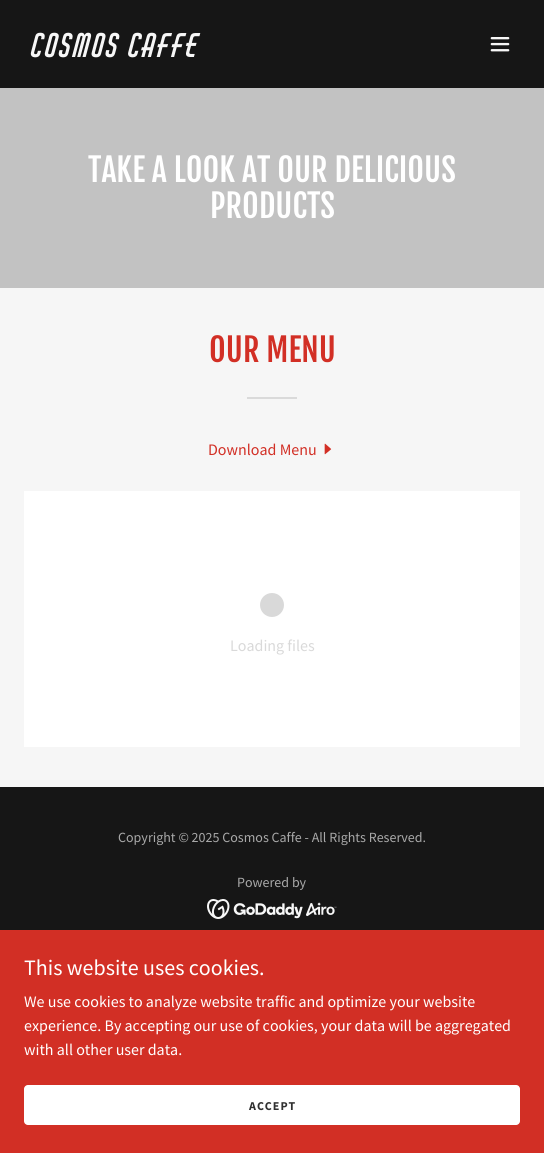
import math
import cairocffi as cairo

surface = cairo.ImageSurface(cairo.FORMAT_RGB24, 544, 1153)
ctx = cairo.Context(surface)
options = cairo.FontOptions()
options.set_hint_metrics(cairo.HINT_METRICS_OFF)
options.set_hint_style(cairo.HINT_STYLE_NONE)
ctx.set_font_options(options)
ctx.set_miter_limit(4)


def rgb(r, g, b):
    ctx.set_source_rgb(r / 255, g / 255, b / 255)


def face(family, size, italic, bold):
    ctx.select_font_face(family, cairo.FONT_SLANT_ITALIC if italic else cairo.FONT_SLANT_NORMAL, cairo.FONT_WEIGHT_BOLD if bold else cairo.FONT_WEIGHT_NORMAL)
    ctx.set_font_size(size)


def label(x, y, s):
    ctx.move_to(x, y)
    ctx.show_text(s)


def tracked(x, y, s, letter, word):
    ctx.move_to(x, y)
    for ch in s:
        ctx.show_text(ch)
        ctx.rel_move_to(letter + word * (ch == ' '), 0)


def rect(x, y, w, h):
    ctx.rectangle(x, y, w, h)
    ctx.fill()


def rrect(x, y, w, h, r):
    ctx.new_sub_path()
    for i, (u, v) in enumerate([(x + w - r, y + h - r), (x + r, y + h - r), (x + r, y + r), (x + w - r, y + r)]):
        ctx.arc(u, v, r, i * math.pi / 2, (i + 1) * math.pi / 2)
    ctx.close_path()


def image(path, x, y, w, h):
    ctx.save()
    ctx.set_source_surface(cairo.ImageSurface.create_from_png(path), x, y)
    ctx.rectangle(x, y, w, h)
    ctx.fill()
    ctx.restore()


rgb(22, 22, 22)
ctx.paint()
face('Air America', 32, 0, 0)
rgb(247, 247, 247)
tracked(32, 57, 'Cosmos Caffe', 2, 0)
image('image0.png', 490, 37, 20, 15)
rgb(194, 194, 194)
rect(0, 88, 544, 200)
face('Fjalla One', 32, 0, 0)
rgb(255, 255, 255)
label(88, 182, 'TAKE A LOOK AT OUR DELICIOUS')
label(210, 218, 'PRODUCTS')
rgb(246, 246, 246)
rect(0, 288, 544, 499)
rgb(210, 47, 37)
label(209, 362, 'OUR MENU')
rgb(218, 218, 218)
rect(247, 397, 50, 2)
face('Source Sans Pro', 16, 0, 0)
rgb(210, 47, 37)
label(208, 455, 'Download Menu')
image('image1.png', 324, 443, 8, 12)
rgb(255, 255, 255)
rect(24, 491, 496, 256)
rgb(217, 217, 217)
ctx.arc(272, 605, 12, 0, 2 * math.pi)
ctx.fill()
label(230, 651, 'Loading files')
face('Source Sans Pro', 14, 0, 0)
rgb(169, 169, 169)
label(118, 842, 'Copyright © 2025 Cosmos Caffe - All Rights Reserved.')
label(237, 887, 'Powered by')
image('image2.png', 207, 899, 130, 20)
rgb(210, 47, 37)
rect(0, 930, 544, 223)
face('Source Sans Pro', 22, 0, 0)
rgb(255, 255, 255)
label(24, 975, 'This website uses cookies.')
face('Source Sans Pro', 16, 0, 0)
label(24, 1007, 'We use cookies to analyze website traffic and optimize your website')
label(24, 1031, 'experience. By accepting our use of cookies, your data will be aggregated')
label(24, 1055, 'with all other user data.')
rrect(24, 1085, 496, 40, 4)
ctx.fill()
face('Source Sans Pro', 12, 0, 1)
rgb(48, 48, 48)
tracked(249, 1110, 'ACCEPT', 1, 0)
surface.write_to_png('render.png')
